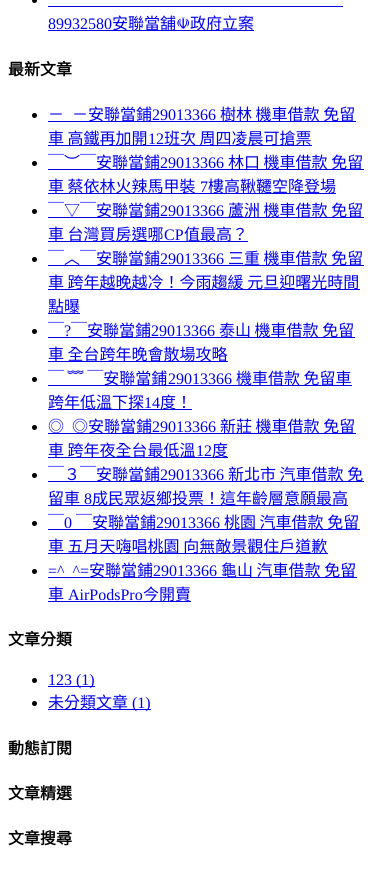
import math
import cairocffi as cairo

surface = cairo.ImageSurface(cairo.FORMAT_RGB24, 374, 870)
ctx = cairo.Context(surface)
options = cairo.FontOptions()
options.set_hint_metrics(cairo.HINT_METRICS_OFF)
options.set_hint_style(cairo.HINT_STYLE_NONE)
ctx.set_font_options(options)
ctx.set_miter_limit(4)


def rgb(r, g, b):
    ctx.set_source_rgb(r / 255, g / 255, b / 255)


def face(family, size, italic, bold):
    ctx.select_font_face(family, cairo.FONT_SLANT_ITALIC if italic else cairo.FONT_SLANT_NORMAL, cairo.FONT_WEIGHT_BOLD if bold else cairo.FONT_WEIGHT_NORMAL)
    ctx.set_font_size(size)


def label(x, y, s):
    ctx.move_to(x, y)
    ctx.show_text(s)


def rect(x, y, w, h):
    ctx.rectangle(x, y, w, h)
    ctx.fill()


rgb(255, 255, 255)
ctx.paint()
rgb(0, 0, 0)
ctx.arc(34.5, 0.5, 2.5, 0, 2 * math.pi)
ctx.fill()
face('Liberation Serif', 16, 0, 0)
rgb(0, 0, 238)
label(48, 29, '89932580')
rect(48, 30, 206, 1)
face('Noto Sans CJK TC', 16, 0, 0)
label(112, 29, '安聯當舖')
rect(48, 6, 295, 1)
face('DejaVu Sans', 16, 0, 0)
label(176, 29, '☫')
face('Noto Sans CJK TC', 16, 0, 0)
label(190, 29, '政府立案')
face('Noto Sans CJK TC', 16, 0, 1)
rgb(0, 0, 0)
label(8, 75, '最新文章')
ctx.new_path()
ctx.arc(34.5, 115.5, 2.5, 0, 2 * math.pi)
ctx.fill()
face('Noto Sans CJK TC', 16, 0, 0)
rgb(0, 0, 238)
label(48, 120, '－')
rect(48, 121, 308, 1)
label(72, 120, '－安聯當鋪')
face('Liberation Serif', 16, 0, 0)
label(152, 120, '29013366')
face('Noto Sans CJK TC', 16, 0, 0)
label(220, 120, '樹林 機車借款 免留')
rect(48, 145, 264, 1)
label(48, 144, '車 高鐵再加開')
face('Liberation Serif', 16, 0, 0)
label(148, 144, '12')
face('Noto Sans CJK TC', 16, 0, 0)
label(164, 144, '班次 周四凌晨可搶票')
rgb(0, 0, 0)
ctx.new_path()
ctx.arc(34.5, 163.5, 2.5, 0, 2 * math.pi)
ctx.fill()
rgb(0, 0, 238)
rect(48, 169, 316, 1)
label(48, 168, '￣︶￣安聯當鋪')
face('Liberation Serif', 16, 0, 0)
label(160, 168, '29013366')
face('Noto Sans CJK TC', 16, 0, 0)
label(228, 168, '林口 機車借款 免留')
rect(48, 193, 288, 1)
label(48, 192, '車 蔡依林火辣馬甲裝')
face('Liberation Serif', 16, 0, 0)
label(200, 192, '7')
face('Noto Sans CJK TC', 16, 0, 0)
label(208, 192, '樓高鞦韆空降登場')
rgb(0, 0, 0)
ctx.new_path()
ctx.arc(34.5, 211.5, 2.5, 0, 2 * math.pi)
ctx.fill()
rgb(0, 0, 238)
rect(48, 217, 316, 1)
label(48, 216, '￣▽￣安聯當鋪')
face('Liberation Serif', 16, 0, 0)
label(160, 216, '29013366')
face('Noto Sans CJK TC', 16, 0, 0)
label(228, 216, '蘆洲 機車借款 免留')
rect(48, 241, 200, 1)
label(48, 240, '車 台灣買房選哪')
face('Liberation Serif', 16, 0, 0)
label(164, 240, 'CP')
face('Noto Sans CJK TC', 16, 0, 0)
label(184, 240, '值最高？')
rgb(0, 0, 0)
ctx.new_path()
ctx.arc(34.5, 259.5, 2.5, 0, 2 * math.pi)
ctx.fill()
rgb(0, 0, 238)
rect(48, 265, 316, 1)
label(48, 264, '￣︿￣安聯當鋪')
face('Liberation Serif', 16, 0, 0)
label(160, 264, '29013366')
face('Noto Sans CJK TC', 16, 0, 0)
label(228, 264, '三重 機車借款 免留')
rect(48, 289, 312, 1)
label(48, 288, '車 跨年越晚越冷！今雨趨緩 元旦迎曙光時間')
rect(48, 313, 32, 1)
label(48, 312, '點曝')
rgb(0, 0, 0)
ctx.new_path()
ctx.arc(34.5, 331.5, 2.5, 0, 2 * math.pi)
ctx.fill()
rgb(0, 0, 238)
label(48, 336, '￣')
face('Liberation Serif', 16, 0, 0)
label(64, 336, '?')
rect(48, 337, 307, 1)
face('Noto Sans CJK TC', 16, 0, 0)
label(71, 336, '￣安聯當鋪')
face('Liberation Serif', 16, 0, 0)
label(151, 336, '29013366')
face('Noto Sans CJK TC', 16, 0, 0)
label(219, 336, '泰山 機車借款 免留')
rect(48, 361, 180, 1)
label(48, 360, '車 全台跨年晚會散場攻略')
rgb(0, 0, 0)
ctx.new_path()
ctx.arc(34.5, 379.5, 2.5, 0, 2 * math.pi)
ctx.fill()
rgb(0, 0, 238)
rect(48, 385, 304, 1)
label(48, 384, '￣ ﹌ ￣安聯當鋪')
face('Liberation Serif', 16, 0, 0)
label(168, 384, '29013366')
face('Noto Sans CJK TC', 16, 0, 0)
label(236, 384, '機車借款 免留車')
rect(48, 409, 144, 1)
label(48, 408, '跨年低溫下探')
face('Liberation Serif', 16, 0, 0)
label(144, 408, '14')
face('Noto Sans CJK TC', 16, 0, 0)
label(160, 408, '度！')
rgb(0, 0, 0)
ctx.new_path()
ctx.arc(34.5, 427.5, 2.5, 0, 2 * math.pi)
ctx.fill()
rgb(0, 0, 238)
rect(48, 433, 308, 1)
label(48, 432, '◎')
label(72, 432, '◎安聯當鋪')
face('Liberation Serif', 16, 0, 0)
label(152, 432, '29013366')
face('Noto Sans CJK TC', 16, 0, 0)
label(220, 432, '新莊 機車借款 免留')
rect(48, 457, 180, 1)
label(48, 456, '車 跨年夜全台最低溫')
face('Liberation Serif', 16, 0, 0)
label(196, 456, '12')
face('Noto Sans CJK TC', 16, 0, 0)
label(212, 456, '度')
rgb(0, 0, 0)
ctx.new_path()
ctx.arc(34.5, 475.5, 2.5, 0, 2 * math.pi)
ctx.fill()
rgb(0, 0, 238)
rect(48, 481, 316, 1)
label(48, 480, '￣３￣安聯當鋪')
face('Liberation Serif', 16, 0, 0)
label(160, 480, '29013366')
face('Noto Sans CJK TC', 16, 0, 0)
label(228, 480, '新北市 汽車借款 免')
rect(48, 505, 300, 1)
label(48, 504, '留車')
face('Liberation Serif', 16, 0, 0)
label(84, 504, '8')
face('Noto Sans CJK TC', 16, 0, 0)
label(92, 504, '成民眾返鄉投票！這年齡層意願最高')
rgb(0, 0, 0)
ctx.new_path()
ctx.arc(34.5, 523.5, 2.5, 0, 2 * math.pi)
ctx.fill()
rgb(0, 0, 238)
label(48, 528, '￣')
face('Liberation Serif', 16, 0, 0)
label(64, 528, '0')
rect(48, 529, 312, 1)
face('Noto Sans CJK TC', 16, 0, 0)
label(76, 528, '￣安聯當鋪')
face('Liberation Serif', 16, 0, 0)
label(156, 528, '29013366')
face('Noto Sans CJK TC', 16, 0, 0)
label(224, 528, '桃園 汽車借款 免留')
rect(48, 553, 280, 1)
label(48, 552, '車 五月天嗨唱桃園 向無敵景觀住戶道歉')
rgb(0, 0, 0)
ctx.new_path()
ctx.arc(34.5, 571.5, 2.5, 0, 2 * math.pi)
ctx.fill()
rgb(0, 0, 238)
rect(48, 577, 309, 1)
face('Liberation Serif', 16, 0, 0)
label(48, 576, '=^_^=')
face('Noto Sans CJK TC', 16, 0, 0)
label(89, 576, '安聯當鋪')
face('Liberation Serif', 16, 0, 0)
label(153, 576, '29013366')
face('Noto Sans CJK TC', 16, 0, 0)
label(221, 576, '龜山 汽車借款 免留')
rect(48, 601, 143, 1)
label(48, 600, '車')
face('Liberation Serif', 16, 0, 0)
label(68, 600, 'AirPodsPro')
face('Noto Sans CJK TC', 16, 0, 0)
label(143, 600, '今開賣')
face('Noto Sans CJK TC', 16, 0, 1)
rgb(0, 0, 0)
label(8, 645, '文章分類')
ctx.new_path()
ctx.arc(34.5, 680.5, 2.5, 0, 2 * math.pi)
ctx.fill()
rgb(0, 0, 238)
rect(48, 686, 47, 1)
face('Liberation Serif', 16, 0, 0)
label(48, 685, '123 (1)')
rgb(0, 0, 0)
ctx.new_path()
ctx.arc(34.5, 703.5, 2.5, 0, 2 * math.pi)
ctx.fill()
rgb(0, 0, 238)
rect(48, 709, 103, 1)
face('Noto Sans CJK TC', 16, 0, 0)
label(48, 708, '未分類文章')
face('Liberation Serif', 16, 0, 0)
label(132, 708, '(1)')
face('Noto Sans CJK TC', 16, 0, 1)
rgb(0, 0, 0)
label(8, 754, '動態訂閱')
label(8, 799, '文章精選')
label(8, 844, '文章搜尋')
surface.write_to_png('render.png')
